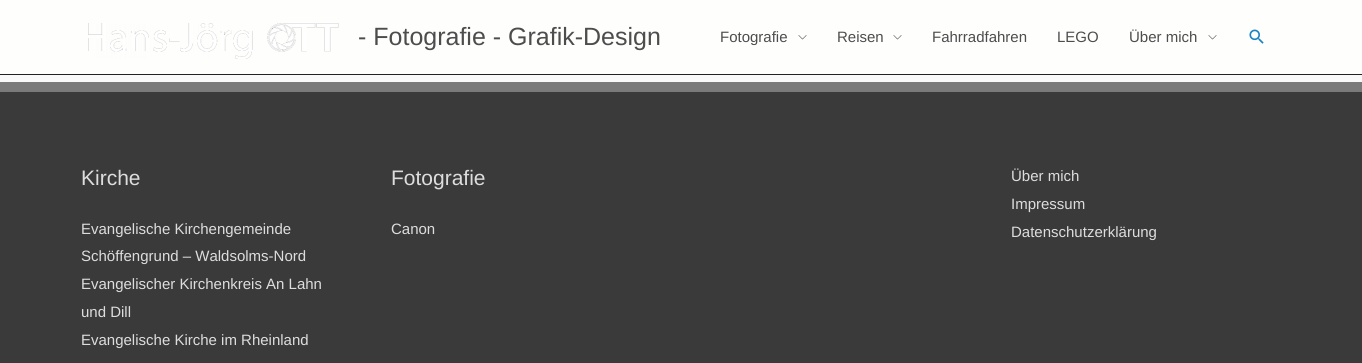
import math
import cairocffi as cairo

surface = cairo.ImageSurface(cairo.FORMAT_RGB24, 1362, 363)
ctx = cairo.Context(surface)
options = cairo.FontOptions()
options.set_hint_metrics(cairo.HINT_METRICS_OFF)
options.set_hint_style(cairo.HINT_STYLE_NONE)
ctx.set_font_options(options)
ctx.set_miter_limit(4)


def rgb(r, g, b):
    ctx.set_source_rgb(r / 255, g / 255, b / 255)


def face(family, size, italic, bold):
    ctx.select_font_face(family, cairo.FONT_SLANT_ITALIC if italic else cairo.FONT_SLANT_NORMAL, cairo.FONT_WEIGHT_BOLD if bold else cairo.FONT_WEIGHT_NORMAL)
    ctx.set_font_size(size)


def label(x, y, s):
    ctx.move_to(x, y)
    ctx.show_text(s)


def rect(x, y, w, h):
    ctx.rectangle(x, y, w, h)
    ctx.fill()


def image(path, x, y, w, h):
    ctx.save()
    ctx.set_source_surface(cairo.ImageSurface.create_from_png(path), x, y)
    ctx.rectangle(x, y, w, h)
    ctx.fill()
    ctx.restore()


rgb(249, 249, 249)
ctx.paint()
rgb(254, 254, 253)
rect(0, 0, 1362, 74)
rgb(34, 34, 34)
rect(0, 74, 1362, 1)
image('image0.png', 88, 23, 251, 36)
face('Liberation Sans', 25, 0, 0)
rgb(77, 77, 77)
label(358, 45, '- Fotografie - Grafik-Design')
face('Liberation Sans', 15, 0, 0)
label(720, 42, 'Fotografie')
image('image1.png', 798, 35, 9, 5)
label(837, 42, 'Reisen')
image('image1.png', 893, 35, 9, 5)
label(932, 42, 'Fahrradfahren')
label(1057, 42, 'LEGO')
label(1129, 42, 'Über mich')
image('image1.png', 1208, 35, 9, 5)
image('image2.png', 1249, 29, 15, 15)
rgb(58, 58, 58)
rect(0, 92, 1362, 271)
rgb(122, 122, 122)
rect(0, 82, 1362, 10)
face('Liberation Sans', 21, 0, 0)
rgb(221, 221, 221)
label(81, 185, 'Kirche')
face('Liberation Sans', 15, 0, 0)
label(81, 234, 'Evangelische Kirchengemeinde')
label(81, 261, 'Schöffengrund – Waldsolms-Nord')
label(81, 289, 'Evangelischer Kirchenkreis An Lahn')
label(81, 317, 'und Dill')
label(81, 345, 'Evangelische Kirche im Rheinland')
face('Liberation Sans', 21, 0, 0)
label(391, 185, 'Fotografie')
face('Liberation Sans', 15, 0, 0)
label(391, 234, 'Canon')
label(1011, 181, 'Über mich')
label(1011, 209, 'Impressum')
label(1011, 237, 'Datenschutzerklärung')
surface.write_to_png('render.png')
